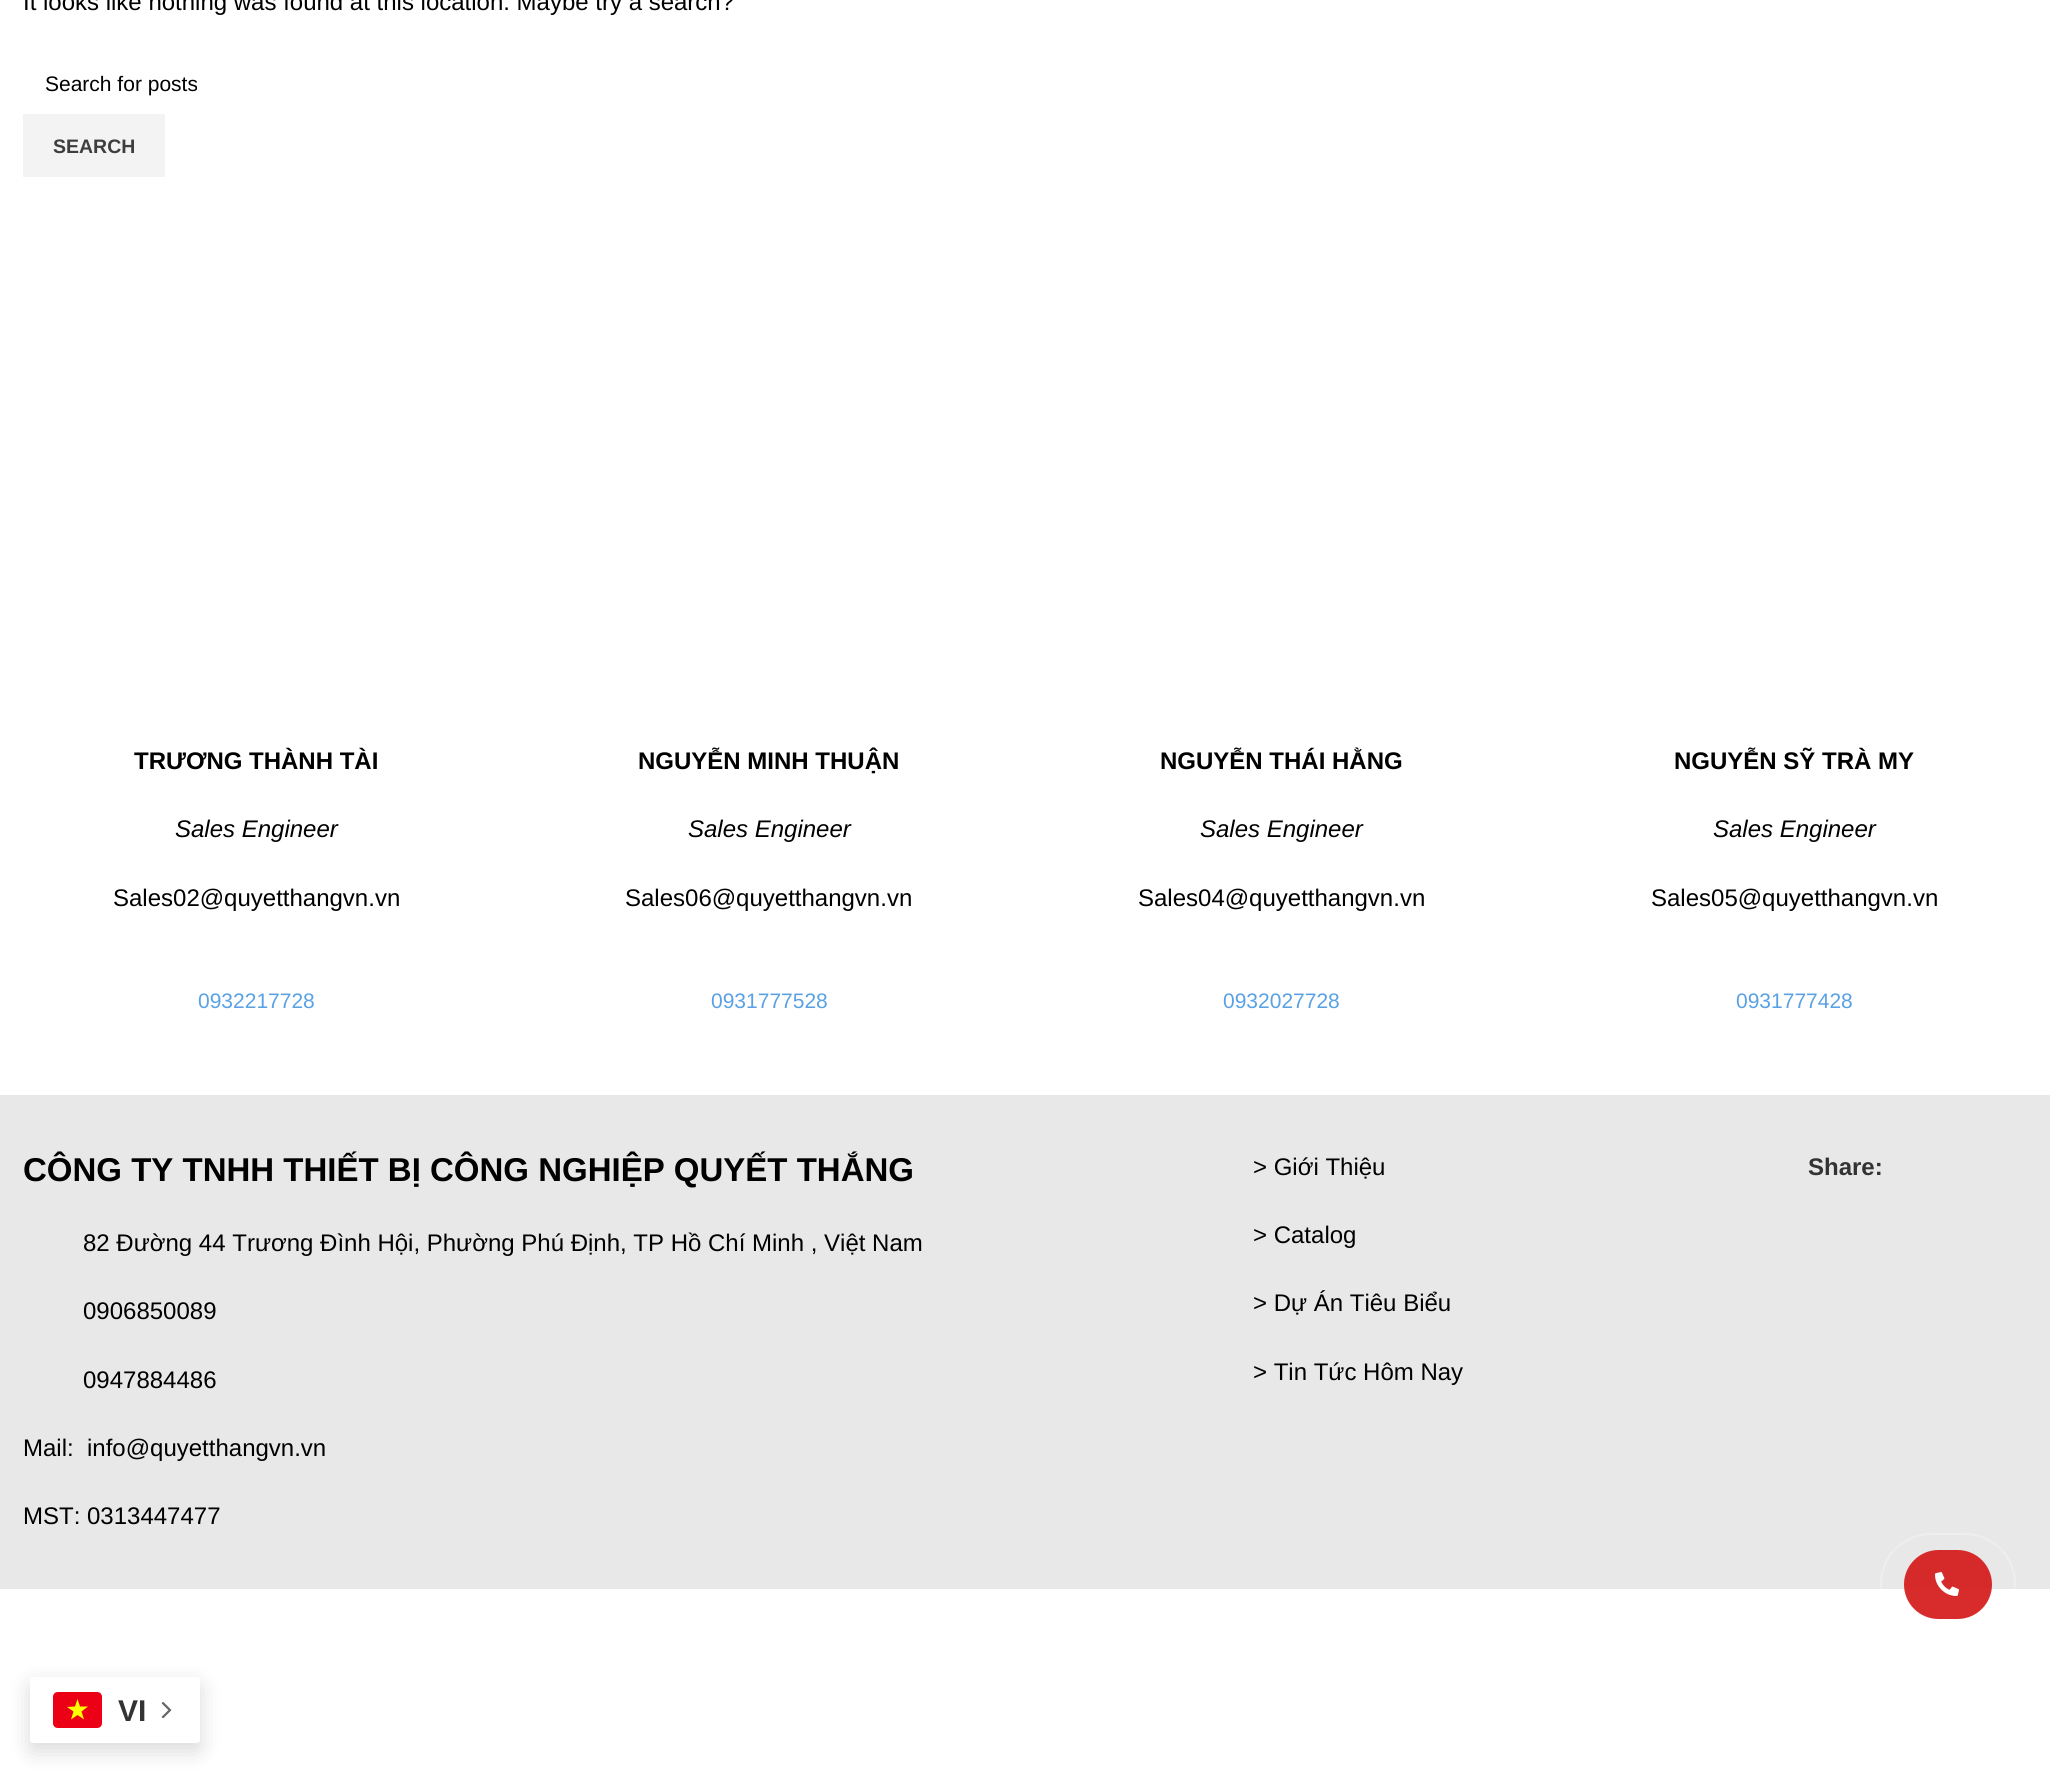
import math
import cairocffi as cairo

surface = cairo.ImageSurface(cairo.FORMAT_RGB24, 2050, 1785)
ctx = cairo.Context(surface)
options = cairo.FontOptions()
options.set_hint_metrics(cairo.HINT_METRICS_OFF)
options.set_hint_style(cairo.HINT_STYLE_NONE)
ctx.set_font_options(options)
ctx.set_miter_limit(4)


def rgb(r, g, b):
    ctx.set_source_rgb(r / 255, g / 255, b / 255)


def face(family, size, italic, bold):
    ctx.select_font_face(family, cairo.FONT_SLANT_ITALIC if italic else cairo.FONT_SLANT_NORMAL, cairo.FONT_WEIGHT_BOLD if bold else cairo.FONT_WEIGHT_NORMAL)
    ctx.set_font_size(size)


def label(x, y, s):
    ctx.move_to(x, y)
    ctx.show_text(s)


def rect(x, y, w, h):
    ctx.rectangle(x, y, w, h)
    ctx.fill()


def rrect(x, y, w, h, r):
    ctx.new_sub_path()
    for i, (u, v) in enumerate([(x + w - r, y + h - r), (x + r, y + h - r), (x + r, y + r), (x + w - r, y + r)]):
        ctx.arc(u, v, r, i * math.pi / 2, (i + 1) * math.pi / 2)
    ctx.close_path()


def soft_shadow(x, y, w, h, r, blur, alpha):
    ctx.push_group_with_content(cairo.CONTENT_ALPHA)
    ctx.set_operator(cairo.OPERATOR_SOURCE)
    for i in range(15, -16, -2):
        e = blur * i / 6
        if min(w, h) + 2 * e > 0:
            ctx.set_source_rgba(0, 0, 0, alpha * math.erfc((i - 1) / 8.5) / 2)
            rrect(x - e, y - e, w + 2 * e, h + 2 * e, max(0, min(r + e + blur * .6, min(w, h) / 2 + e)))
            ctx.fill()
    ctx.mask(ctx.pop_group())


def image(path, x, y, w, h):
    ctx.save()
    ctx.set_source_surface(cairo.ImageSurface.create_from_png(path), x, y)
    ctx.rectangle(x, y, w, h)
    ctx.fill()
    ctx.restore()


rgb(255, 255, 255)
ctx.paint()
face('Liberation Sans', 24, 0, 0)
rgb(0, 0, 0)
label(23, 10, 'It looks like nothing was found at this location. Maybe try a search?')
face('Liberation Sans', 21, 0, 0)
label(45, 91, 'Search for posts')
rgb(243, 243, 243)
rect(23, 114, 142, 63)
face('Liberation Sans', 19.5, 0, 1)
rgb(62, 62, 62)
label(53, 153, 'SEARCH')
face('Liberation Sans', 24, 0, 1)
rgb(0, 0, 0)
label(134, 769, 'TRƯƠNG THÀNH TÀI')
face('Liberation Sans', 24, 1, 0)
label(175, 837, 'Sales Engineer')
face('Liberation Sans', 24, 0, 0)
label(113, 906, 'Sales02@quyetthangvn.vn')
face('Liberation Sans', 21, 0, 0)
rgb(90, 161, 227)
label(198, 1008, '0932217728')
face('Liberation Sans', 24, 0, 1)
rgb(0, 0, 0)
label(638, 769, 'NGUYỄN MINH THUẬN')
face('Liberation Sans', 24, 1, 0)
label(688, 837, 'Sales Engineer')
face('Liberation Sans', 24, 0, 0)
label(625, 906, 'Sales06@quyetthangvn.vn')
face('Liberation Sans', 21, 0, 0)
rgb(90, 161, 227)
label(711, 1008, '0931777528')
face('Liberation Sans', 24, 0, 1)
rgb(0, 0, 0)
label(1160, 769, 'NGUYỄN THÁI HẰNG')
face('Liberation Sans', 24, 1, 0)
label(1200, 837, 'Sales Engineer')
face('Liberation Sans', 24, 0, 0)
label(1138, 906, 'Sales04@quyetthangvn.vn')
face('Liberation Sans', 21, 0, 0)
rgb(90, 161, 227)
label(1223, 1008, '0932027728')
face('Liberation Sans', 24, 0, 1)
rgb(0, 0, 0)
label(1674, 769, 'NGUYỄN SỸ TRÀ MY')
face('Liberation Sans', 24, 1, 0)
label(1713, 837, 'Sales Engineer')
face('Liberation Sans', 24, 0, 0)
label(1651, 906, 'Sales05@quyetthangvn.vn')
face('Liberation Sans', 21, 0, 0)
rgb(90, 161, 227)
label(1736, 1008, '0931777428')
rgb(232, 232, 232)
rect(0, 1095, 2050, 494)
face('Liberation Sans', 33, 0, 1)
rgb(0, 0, 0)
label(23, 1181, 'CÔNG TY TNHH THIẾT BỊ CÔNG NGHIỆP QUYẾT THẮNG')
face('Liberation Sans', 24, 0, 0)
label(83, 1251, '82 Đường 44 Trương Đình Hội, Phường Phú Định, TP Hồ Chí Minh , Việt Nam')
label(83, 1319, '0906850089')
label(83, 1388, '0947884486')
label(23, 1456, 'Mail:  info@quyetthangvn.vn')
label(23, 1524, 'MST: 0313447477')
label(1253, 1175, '> Giới Thiệu')
label(1253, 1243, '> Catalog')
label(1253, 1311, '> Dự Án Tiêu Biểu')
label(1253, 1380, '> Tin Tức Hôm Nay')
face('Liberation Sans', 24, 0, 1)
rgb(51, 51, 51)
label(1808, 1175, 'Share:')
rrect(1881, 1534, 134, 100, 50)
ctx.set_source_rgba(1, 1, 1, 0.25)
ctx.stroke()
ctx.set_source_rgba(0.831, 0.086, 0.086, 0.9)
rrect(1904, 1550, 88, 69, 34.5)
ctx.fill()
image('image0.png', 1935, 1572, 24, 24)
rgb(0, 0, 0)
soft_shadow(30, 1685, 170, 66, 3, 11, 0.15)
rgb(255, 255, 255)
rrect(30, 1677, 170, 66, 3)
ctx.fill()
rgb(236, 0, 21)
ctx.new_path()
ctx.move_to(58, 1692)
ctx.curve_to(55, 1692, 53, 1694, 53, 1697)
ctx.line_to(53, 1723)
ctx.curve_to(53, 1726, 55, 1728, 58, 1728)
ctx.line_to(97, 1728)
ctx.curve_to(100, 1728, 102, 1726, 102, 1723)
ctx.line_to(102, 1697)
ctx.curve_to(102, 1694, 100, 1692, 97, 1692)
ctx.close_path()
ctx.fill()
rgb(255, 255, 0)
ctx.set_fill_rule(cairo.FILL_RULE_EVEN_ODD)
ctx.new_path()
ctx.move_to(84, 1719.5)
ctx.line_to(77.5, 1715)
ctx.line_to(71, 1719.5)
ctx.line_to(73.5, 1711.5)
ctx.line_to(67, 1707)
ctx.line_to(75, 1706.5)
ctx.line_to(77.5, 1699)
ctx.line_to(80, 1706.5)
ctx.line_to(88, 1706.5)
ctx.line_to(81.5, 1711.5)
ctx.close_path()
ctx.fill()
face('Liberation Sans', 30, 0, 1)
rgb(51, 51, 51)
label(118, 1721, 'VI')
image('image1.png', 161, 1702, 11, 17)
surface.write_to_png('render.png')
